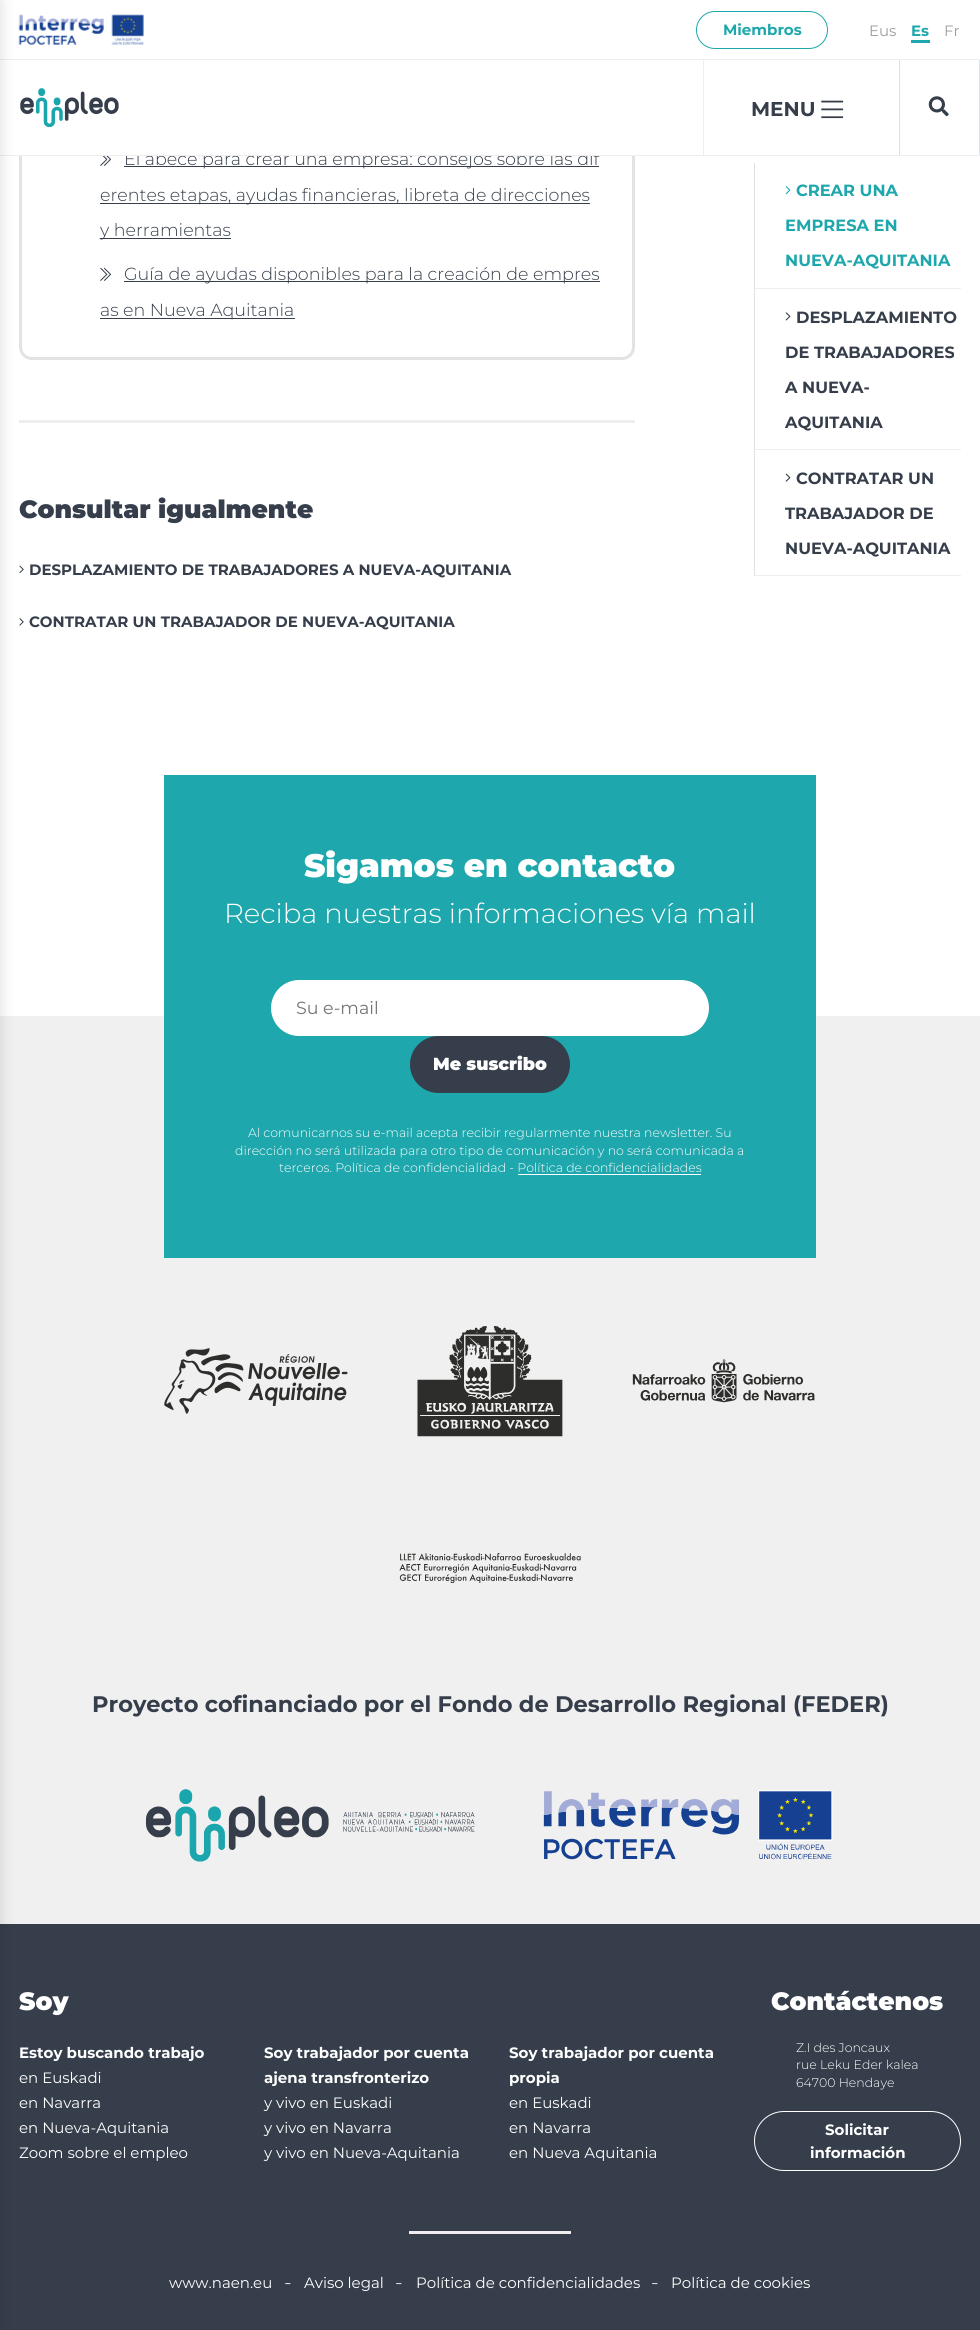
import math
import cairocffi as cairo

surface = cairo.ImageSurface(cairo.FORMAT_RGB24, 980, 2330)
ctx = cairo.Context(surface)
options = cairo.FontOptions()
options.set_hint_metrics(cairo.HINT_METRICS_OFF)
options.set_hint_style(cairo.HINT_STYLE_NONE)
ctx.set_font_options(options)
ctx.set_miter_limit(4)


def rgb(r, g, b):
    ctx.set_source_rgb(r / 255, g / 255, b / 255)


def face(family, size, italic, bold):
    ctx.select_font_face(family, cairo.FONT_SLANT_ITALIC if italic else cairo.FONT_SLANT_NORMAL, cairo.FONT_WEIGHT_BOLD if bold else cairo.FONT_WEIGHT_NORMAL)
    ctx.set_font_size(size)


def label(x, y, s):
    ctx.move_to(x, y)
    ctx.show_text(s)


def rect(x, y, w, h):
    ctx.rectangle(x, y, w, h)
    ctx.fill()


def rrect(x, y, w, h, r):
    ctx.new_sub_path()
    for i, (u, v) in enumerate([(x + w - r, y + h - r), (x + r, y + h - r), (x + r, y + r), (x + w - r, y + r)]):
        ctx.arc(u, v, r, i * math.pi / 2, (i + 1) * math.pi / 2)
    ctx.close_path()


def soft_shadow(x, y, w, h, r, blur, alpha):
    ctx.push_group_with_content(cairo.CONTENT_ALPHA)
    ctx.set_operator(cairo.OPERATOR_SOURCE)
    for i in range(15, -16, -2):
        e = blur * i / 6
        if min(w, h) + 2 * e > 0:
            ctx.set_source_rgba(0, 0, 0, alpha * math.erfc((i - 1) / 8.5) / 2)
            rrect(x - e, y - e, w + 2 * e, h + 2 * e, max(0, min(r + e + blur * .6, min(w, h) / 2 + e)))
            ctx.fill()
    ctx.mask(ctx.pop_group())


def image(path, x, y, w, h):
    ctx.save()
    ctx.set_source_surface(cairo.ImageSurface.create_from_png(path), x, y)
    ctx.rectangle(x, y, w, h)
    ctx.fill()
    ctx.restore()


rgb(255, 255, 255)
ctx.paint()
rrect(20.5, -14.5, 613, 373, 11.5)
rgb(227, 227, 227)
ctx.set_line_width(3)
ctx.stroke()
rgb(53, 62, 74)
rect(124, 166, 475, 1)
face('Montserrat Light', 17.5, 0, 0)
label(124, 165, 'El abecé para crear una empresa: consejos sobre las dif')
rgb(255, 255, 255)
rect(19, 0, 616, 155)
rgb(239, 237, 237)
rect(0, 59, 980, 1)
image('image0.png', 18, 14, 126, 31)
rect(0, 155, 980, 1)
image('image1.png', 20, 88, 99, 40)
rect(19, 420, 616, 3)
image('image6.png', 19, 565, 5, 9)
image('image7.png', 19, 618, 5, 8)
rgb(240, 240, 240)
rect(0, 1016, 980, 908)
rgb(53, 62, 74)
rect(0, 1924, 980, 406)
rgb(0, 0, 0)
soft_shadow(-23, 0, 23, 2330, 0, 7.5, 0.14)
rrect(696.5, 11.5, 131, 37, 18.5)
rgb(30, 167, 172)
ctx.set_line_width(1)
ctx.stroke()
face('Montserrat', 15, 0, 1)
label(723, 35, 'Miembros')
face('Montserrat', 15, 0, 0)
rgb(157, 157, 156)
label(869, 36, 'Eus')
rgb(30, 167, 172)
rect(911, 40, 19, 3)
face('Montserrat', 15, 0, 1)
label(911, 36, 'Es')
face('Montserrat', 15, 0, 0)
rgb(157, 157, 156)
label(944, 36, 'Fr')
rgb(239, 237, 237)
rect(703, 60, 1, 95)
face('Montserrat', 20, 0, 1)
rgb(53, 62, 74)
label(751, 116, 'MENU')
image('image2.png', 821, 100, 23, 19)
rgb(222, 226, 230)
rect(979, 60, 1, 95)
rect(899, 60, 1, 95)
image('image3.png', 928, 96, 21, 21)
image('image4.png', 100, 156, 11, 10)
rgb(53, 62, 74)
rect(100, 203, 490, 1)
face('Montserrat Light', 17.5, 0, 0)
label(100, 201, 'erentes etapas, ayudas financieras, libreta de direcciones')
rect(100, 238, 131, 1)
label(100, 236, 'y herramientas')
image('image5.png', 100, 267, 11, 14)
rect(124, 281, 476, 1)
label(124, 280, 'Guía de ayudas disponibles para la creación de empres')
rect(100, 318, 195, 1)
label(100, 316, 'as en Nueva Aquitania')
face('Montserrat Black', 25, 0, 0)
label(19, 518, 'Consultar igualmente')
face('Montserrat', 15, 0, 1)
label(29, 575, 'DESPLAZAMIENTO DE TRABAJADORES A NUEVA-AQUITANIA')
label(29, 627, 'CONTRATAR UN TRABAJADOR DE NUEVA-AQUITANIA')
rgb(222, 226, 230)
rect(754, 163, 1, 413)
rgb(239, 237, 237)
rect(755, 288, 206, 1)
image('image8.png', 785, 186, 6, 9)
face('Montserrat', 16.25, 0, 1)
rgb(30, 167, 172)
label(796, 196, 'CREAR UNA')
label(785, 231, 'EMPRESA EN')
label(785, 266, 'NUEVA-AQUITANIA')
rgb(239, 237, 237)
rect(755, 449, 206, 1)
image('image9.png', 785, 312, 6, 9)
rgb(53, 62, 74)
label(796, 323, 'DESPLAZAMIENTO')
label(785, 358, 'DE TRABAJADORES')
label(785, 393, 'A NUEVA-')
label(785, 428, 'AQUITANIA')
rgb(239, 237, 237)
rect(755, 575, 206, 1)
image('image10.png', 785, 473, 6, 9)
rgb(53, 62, 74)
label(796, 484, 'CONTRATAR UN')
label(785, 519, 'TRABAJADOR DE')
label(785, 554, 'NUEVA-AQUITANIA')
rgb(30, 167, 172)
rect(164, 775, 652, 483)
face('Montserrat Black', 32.5, 0, 0)
rgb(255, 255, 255)
label(304, 877, 'Sigamos en contacto')
face('Montserrat Light', 27.5, 0, 0)
label(224, 923, 'Reciba nuestras informaciones vía mail')
rrect(271, 980, 438, 56, 28)
ctx.fill()
face('Montserrat', 17.5, 0, 0)
rgb(117, 117, 117)
label(296, 1014, 'Su e-mail')
rgb(53, 62, 74)
rrect(410, 1036, 160, 57, 28.5)
ctx.fill()
face('Montserrat Black', 17.5, 0, 0)
rgb(255, 255, 255)
label(433, 1070, 'Me suscribo')
face('Montserrat Light', 12.5, 0, 0)
label(248, 1137, 'Al comunicarnos su e-mail acepta recibir regularmente nuestra newsletter. Su')
label(235, 1155, 'dirección no será utilizada para otro tipo de comunicación y no será comunicada a')
label(279, 1172, 'terceros. Política de confidencialidad - Política de confidencialidades')
rect(518, 1174, 183, 1)
image('image11.png', 164, 1348, 184, 66)
image('image12.png', 417, 1326, 146, 111)
image('image13.png', 632, 1359, 183, 44)
image('image14.png', 399, 1553, 182, 30)
face('Montserrat', 22.5, 0, 1)
rgb(53, 62, 74)
label(92, 1712, 'Proyecto cofinanciado por el Fondo de Desarrollo Regional (FEDER)')
image('image15.png', 145, 1789, 330, 73)
image('image16.png', 543, 1790, 290, 70)
face('Montserrat Black', 25, 0, 0)
rgb(255, 255, 255)
label(19, 2010, 'Soy')
face('Montserrat', 15, 0, 1)
label(19, 2058, 'Estoy buscando trabajo')
face('Montserrat', 15, 0, 0)
label(19, 2083, 'en Euskadi')
label(19, 2108, 'en Navarra')
label(19, 2133, 'en Nueva-Aquitania')
label(19, 2158, 'Zoom sobre el empleo')
face('Montserrat', 15, 0, 1)
label(264, 2058, 'Soy trabajador por cuenta')
label(264, 2083, 'ajena transfronterizo')
face('Montserrat', 15, 0, 0)
label(264, 2108, 'y vivo en Euskadi')
label(264, 2133, 'y vivo en Navarra')
label(264, 2158, 'y vivo en Nueva-Aquitania')
face('Montserrat', 15, 0, 1)
label(509, 2058, 'Soy trabajador por cuenta')
label(509, 2083, 'propia')
face('Montserrat', 15, 0, 0)
label(509, 2108, 'en Euskadi')
label(509, 2133, 'en Navarra')
label(509, 2158, 'en Nueva Aquitania')
face('Montserrat Black', 25, 0, 0)
label(771, 2010, 'Contáctenos')
face('Montserrat Light', 12.5, 0, 0)
label(796, 2052, 'Z.I des Joncaux')
label(796, 2069, 'rue Leku Eder kalea')
label(796, 2087, '64700 Hendaye')
rrect(754.5, 2111.5, 206, 59, 29.5)
ctx.stroke()
face('Montserrat', 15, 0, 1)
label(825, 2135, 'Solicitar')
label(810, 2158, 'información')
rgb(239, 237, 237)
rect(409, 2231, 162, 3)
face('Montserrat', 15, 0, 0)
rgb(255, 255, 255)
label(169, 2288, 'www.naen.eu')
face('Montserrat Light', 20, 0, 0)
label(284, 2289, '-')
face('Montserrat', 15, 0, 0)
label(304, 2288, 'Aviso legal')
face('Montserrat Light', 20, 0, 0)
label(395, 2289, '-')
face('Montserrat', 15, 0, 0)
label(416, 2288, 'Política de confidencialidades')
face('Montserrat Light', 20, 0, 0)
label(651, 2289, '-')
face('Montserrat', 15, 0, 0)
label(671, 2288, 'Política de cookies')
surface.write_to_png('render.png')
